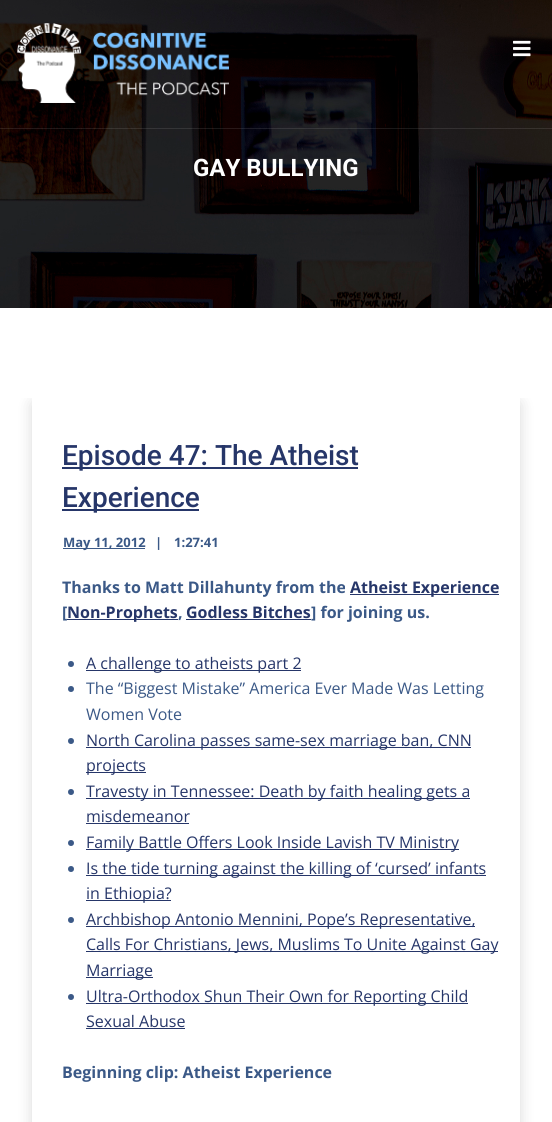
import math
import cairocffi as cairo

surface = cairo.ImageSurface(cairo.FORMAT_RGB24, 552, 1122)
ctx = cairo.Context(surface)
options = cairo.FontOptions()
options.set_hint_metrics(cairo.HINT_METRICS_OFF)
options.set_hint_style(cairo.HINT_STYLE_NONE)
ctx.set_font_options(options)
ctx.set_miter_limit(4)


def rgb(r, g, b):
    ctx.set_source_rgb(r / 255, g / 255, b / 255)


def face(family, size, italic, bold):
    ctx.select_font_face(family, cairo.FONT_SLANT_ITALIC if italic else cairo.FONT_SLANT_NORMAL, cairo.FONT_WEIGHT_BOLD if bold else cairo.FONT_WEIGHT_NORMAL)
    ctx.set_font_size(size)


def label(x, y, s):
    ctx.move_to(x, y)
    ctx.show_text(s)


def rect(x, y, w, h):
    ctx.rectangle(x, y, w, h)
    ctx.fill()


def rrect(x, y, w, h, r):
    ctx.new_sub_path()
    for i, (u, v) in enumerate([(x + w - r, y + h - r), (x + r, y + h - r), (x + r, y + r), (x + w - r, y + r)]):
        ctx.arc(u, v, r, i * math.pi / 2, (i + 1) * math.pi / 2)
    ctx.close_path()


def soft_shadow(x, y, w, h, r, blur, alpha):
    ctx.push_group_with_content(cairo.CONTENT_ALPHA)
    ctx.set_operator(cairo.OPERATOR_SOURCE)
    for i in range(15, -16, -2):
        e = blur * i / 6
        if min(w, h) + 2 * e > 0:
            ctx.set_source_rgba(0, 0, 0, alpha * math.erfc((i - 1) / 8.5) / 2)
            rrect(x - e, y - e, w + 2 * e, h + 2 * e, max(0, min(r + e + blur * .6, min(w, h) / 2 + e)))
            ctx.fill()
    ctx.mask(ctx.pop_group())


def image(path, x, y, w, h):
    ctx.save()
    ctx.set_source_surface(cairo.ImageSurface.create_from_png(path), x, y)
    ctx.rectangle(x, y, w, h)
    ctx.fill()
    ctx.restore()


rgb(255, 255, 255)
ctx.paint()
image('image2.png', 0, 0, 552, 308)
image('image0.png', 17, 23, 212, 80)
image('image1.png', 513, 40, 18, 17)
ctx.set_source_rgba(1, 1, 1, 0.1)
rect(0, 128, 552, 1)
face('Roboto', 24, 0, 1)
rgb(255, 255, 255)
label(193, 176, 'GAY BULLYING')
ctx.save()
ctx.rectangle(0, 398, 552, 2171)
ctx.clip()
rgb(0, 0, 0)
soft_shadow(32, 401, 488, 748, 4, 7.5, 0.15)
ctx.restore()
rect(32, 398, 488, 724)
rgb(38, 54, 105)
rect(62, 467, 296, 2)
face('Roboto Medium', 28, 0, 0)
label(62, 465, 'Episode 47: The Atheist')
rect(62, 509, 137, 2)
label(62, 507, 'Experience')
rgb(59, 89, 135)
rect(63, 548, 82, 1)
face('Open Sans', 13, 0, 1)
label(63, 547, 'May 11, 2012')
label(155, 547, '|')
label(174, 547, '1:27:41')
face('Open Sans', 16, 0, 1)
label(62, 593, 'Thanks to Matt Dillahunty from the')
rgb(38, 54, 105)
rect(350, 594, 149, 1)
label(350, 593, 'Atheist Experience')
rgb(59, 89, 135)
label(62, 618, '[')
rgb(38, 54, 105)
rect(67, 619, 111, 1)
label(67, 618, 'Non-Prophets')
rgb(59, 89, 135)
label(178, 618, ',')
rgb(38, 54, 105)
rect(186, 619, 125, 1)
label(186, 618, 'Godless Bitches')
rgb(59, 89, 135)
label(311, 618, '] for joining us.')
ctx.new_path()
ctx.arc(71, 664, 3, 0, 2 * math.pi)
ctx.fill()
rgb(38, 54, 105)
rect(86, 670, 215, 1)
face('Open Sans', 16, 0, 0)
label(86, 669, 'A challenge to atheists part 2')
rgb(59, 89, 135)
ctx.new_path()
ctx.arc(71, 689, 3, 0, 2 * math.pi)
ctx.fill()
label(86, 694, 'The “Biggest Mistake” America Ever Made Was Letting')
label(86, 720, 'Women Vote')
ctx.new_path()
ctx.arc(71, 741, 3, 0, 2 * math.pi)
ctx.fill()
rgb(38, 54, 105)
rect(86, 747, 385, 1)
label(86, 746, 'North Carolina passes same-sex marriage ban, CNN')
rect(86, 772, 60, 1)
label(86, 771, 'projects')
rgb(59, 89, 135)
ctx.new_path()
ctx.arc(71, 792, 3, 0, 2 * math.pi)
ctx.fill()
rgb(38, 54, 105)
rect(86, 798, 384, 1)
label(86, 797, 'Travesty in Tennessee: Death by faith healing gets a')
label(86, 822, 'misdemeanor')
rect(86, 823, 103, 1)
rgb(59, 89, 135)
ctx.new_path()
ctx.arc(71, 843, 3, 0, 2 * math.pi)
ctx.fill()
rgb(38, 54, 105)
rect(86, 849, 373, 1)
label(86, 848, 'Family Battle Offers Look Inside Lavish TV Ministry')
rgb(59, 89, 135)
ctx.new_path()
ctx.arc(71, 869, 3, 0, 2 * math.pi)
ctx.fill()
rgb(38, 54, 105)
rect(86, 875, 400, 1)
label(86, 874, 'Is the tide turning against the killing of ‘cursed’ infants')
rect(86, 900, 85, 1)
label(86, 899, 'in Ethiopia?')
rgb(59, 89, 135)
ctx.new_path()
ctx.arc(71, 920, 3, 0, 2 * math.pi)
ctx.fill()
rgb(38, 54, 105)
rect(86, 926, 389, 1)
label(86, 925, 'Archbishop Antonio Mennini, Pope’s Representative,')
rect(86, 951, 412, 1)
label(86, 950, 'Calls For Christians, Jews, Muslims To Unite Against Gay')
rect(86, 977, 67, 1)
label(86, 976, 'Marriage')
rgb(59, 89, 135)
ctx.new_path()
ctx.arc(71, 997, 3, 0, 2 * math.pi)
ctx.fill()
rgb(38, 54, 105)
rect(86, 1003, 382, 1)
label(86, 1002, 'Ultra-Orthodox Shun Their Own for Reporting Child')
label(86, 1027, 'Sexual Abuse')
rect(86, 1028, 99, 1)
face('Open Sans', 16, 0, 1)
rgb(59, 89, 135)
label(62, 1078, 'Beginning clip: Atheist Experience')
surface.write_to_png('render.png')
